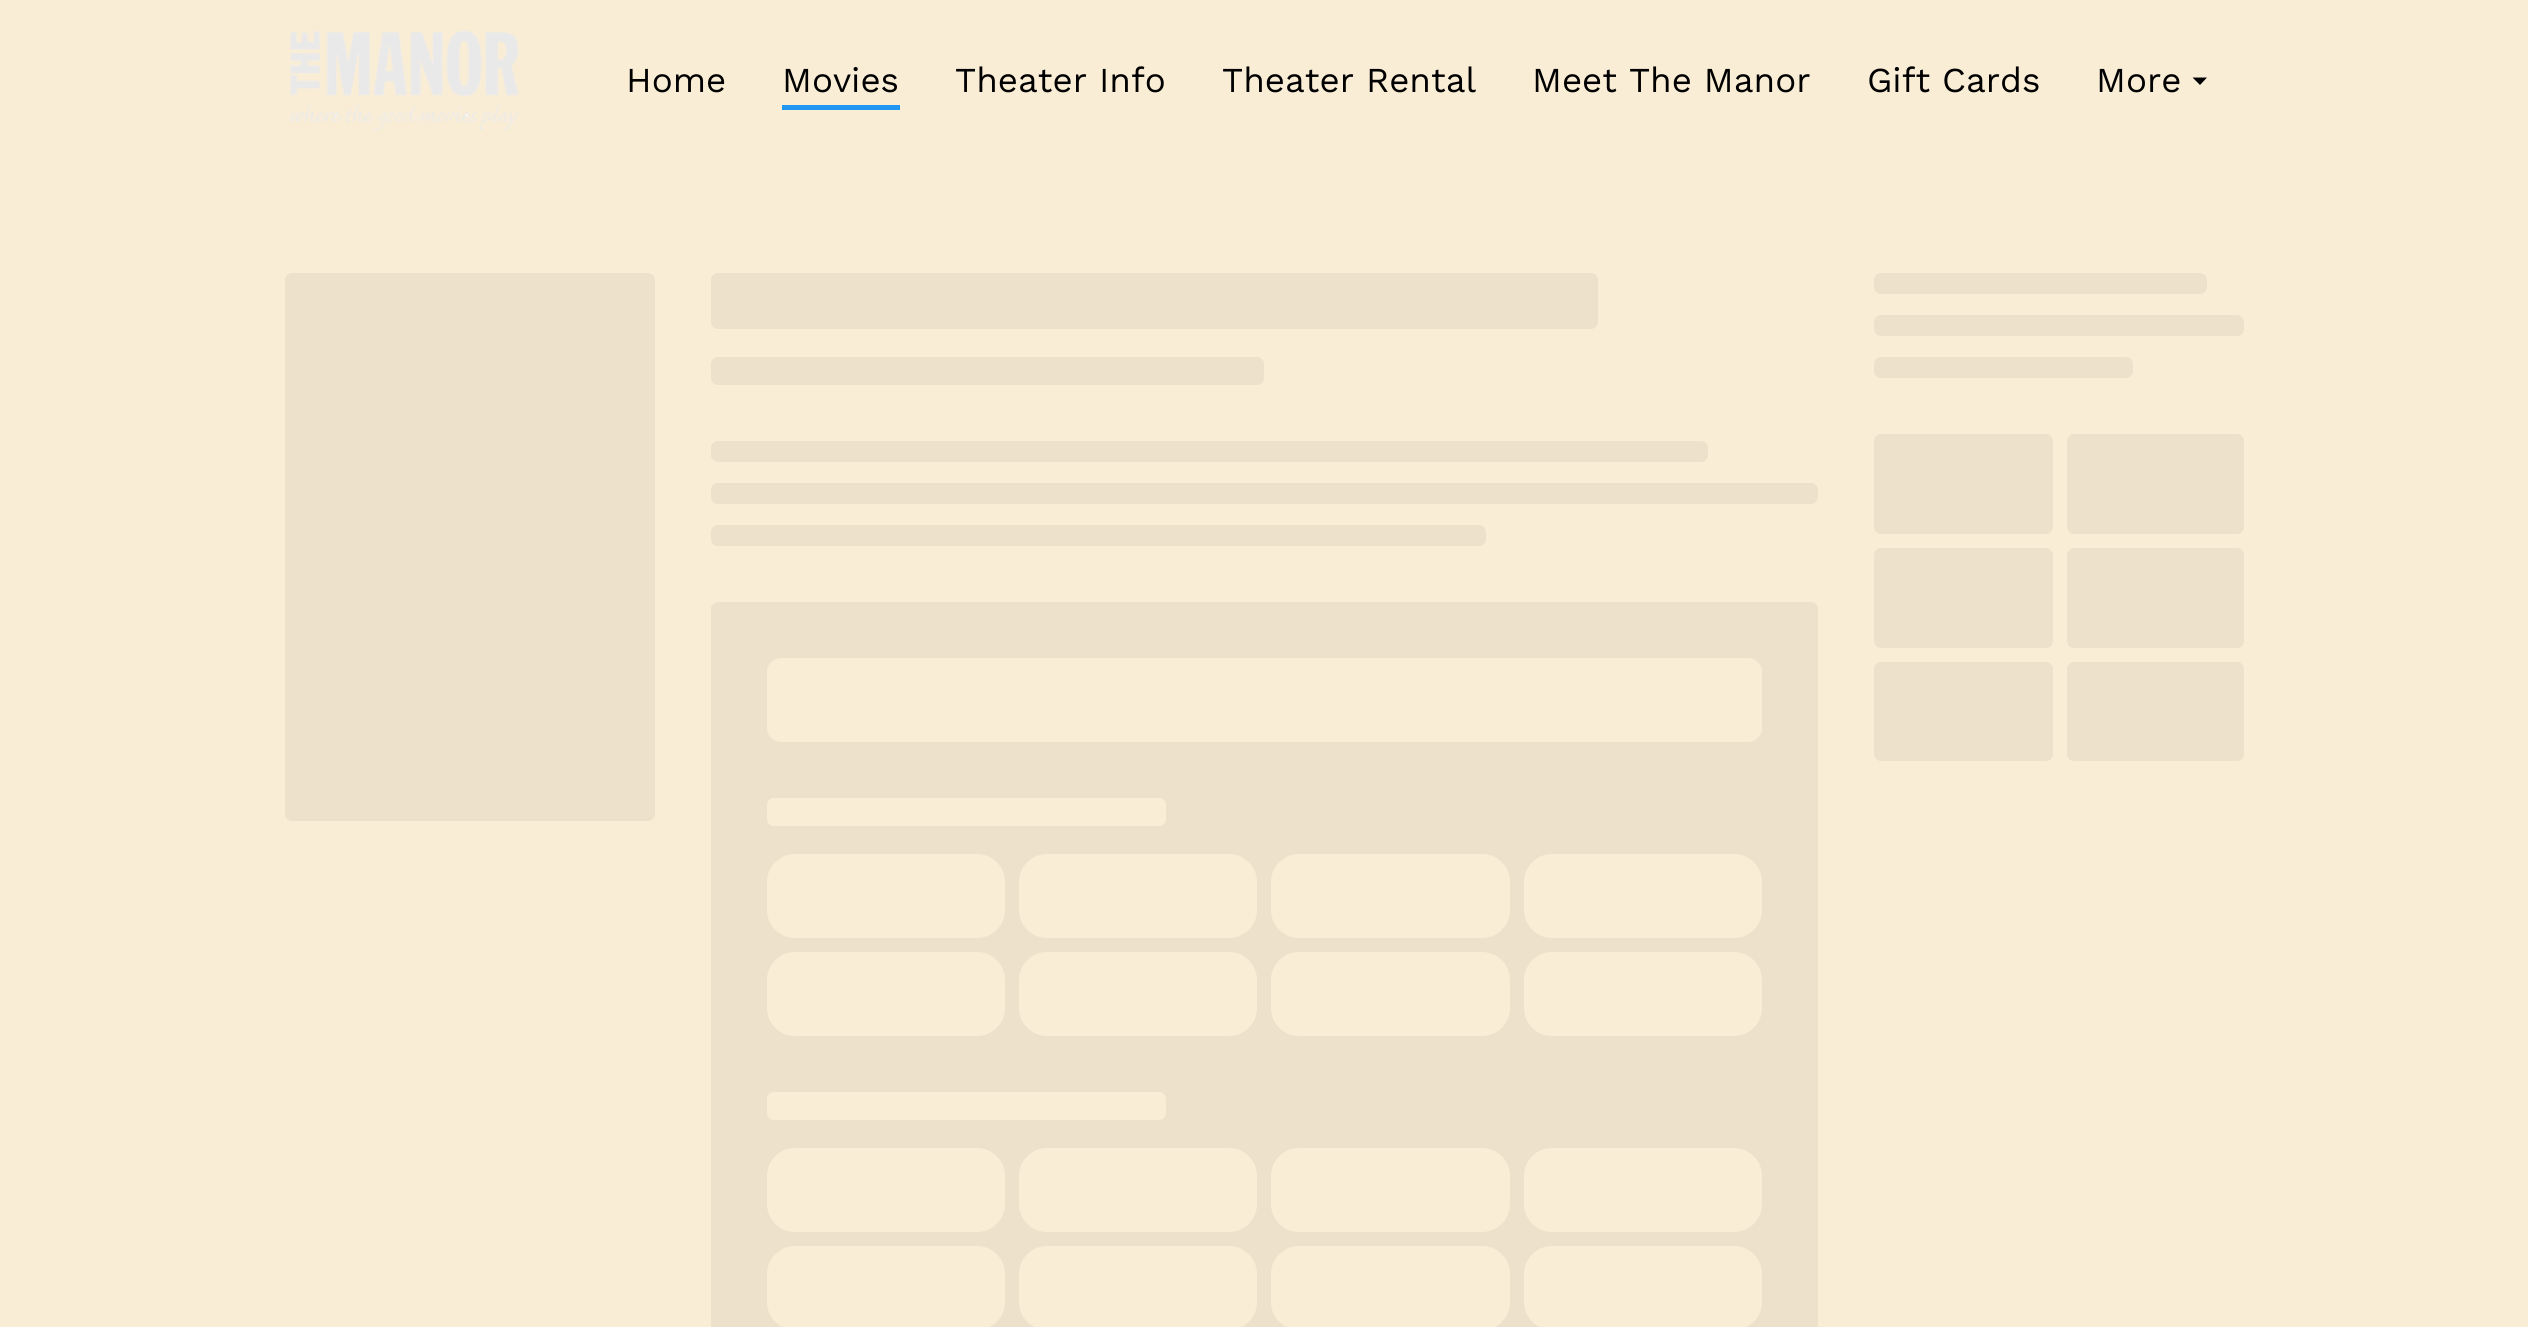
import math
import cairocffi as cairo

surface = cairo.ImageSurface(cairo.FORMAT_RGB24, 2528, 1327)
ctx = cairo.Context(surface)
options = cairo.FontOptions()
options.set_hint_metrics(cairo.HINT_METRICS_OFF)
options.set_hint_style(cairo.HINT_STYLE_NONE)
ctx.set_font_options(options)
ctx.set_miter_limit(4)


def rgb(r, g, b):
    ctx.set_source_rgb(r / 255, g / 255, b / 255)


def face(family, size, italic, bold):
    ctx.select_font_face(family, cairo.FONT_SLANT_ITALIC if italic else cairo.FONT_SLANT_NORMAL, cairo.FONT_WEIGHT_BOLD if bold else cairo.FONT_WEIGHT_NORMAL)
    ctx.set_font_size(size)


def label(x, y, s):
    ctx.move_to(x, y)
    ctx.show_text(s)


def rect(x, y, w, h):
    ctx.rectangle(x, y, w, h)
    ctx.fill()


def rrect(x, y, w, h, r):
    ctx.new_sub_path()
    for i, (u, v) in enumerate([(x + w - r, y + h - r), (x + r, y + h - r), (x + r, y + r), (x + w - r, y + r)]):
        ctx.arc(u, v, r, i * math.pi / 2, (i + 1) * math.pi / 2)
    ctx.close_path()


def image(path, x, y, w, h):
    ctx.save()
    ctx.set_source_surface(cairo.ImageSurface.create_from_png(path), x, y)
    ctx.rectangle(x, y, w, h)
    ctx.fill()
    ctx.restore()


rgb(249, 237, 214)
ctx.paint()
image('image0.png', 290, 30, 229, 101)
face('Work Sans', 35, 0, 0)
rgb(0, 0, 0)
label(626, 92, 'Home')
label(782, 92, 'Movies')
rgb(33, 150, 243)
rect(782, 105, 118, 5)
rgb(0, 0, 0)
label(955, 92, 'Theater Info')
label(1222, 92, 'Theater Rental')
label(1532, 92, 'Meet The Manor')
label(1867, 92, 'Gift Cards')
label(2096, 92, 'More')
ctx.new_path()
ctx.move_to(2192.5, 77.5)
ctx.line_to(2200, 85)
ctx.line_to(2207, 77.5)
ctx.close_path()
ctx.fill()
rgb(237, 225, 203)
rrect(285, 273, 370, 548, 7)
ctx.fill()
rrect(711, 273, 887, 56, 7)
ctx.fill()
rrect(711, 357, 553, 28, 7)
ctx.fill()
rrect(1874, 273, 333, 21, 7)
ctx.fill()
rrect(1874, 315, 370, 21, 7)
ctx.fill()
rrect(1874, 357, 259, 21, 7)
ctx.fill()
rrect(1874, 434, 179, 100, 7)
ctx.fill()
rrect(2067, 434, 177, 100, 7)
ctx.fill()
rrect(1874, 548, 179, 100, 7)
ctx.fill()
rrect(2067, 548, 177, 100, 7)
ctx.fill()
rrect(1874, 662, 179, 99, 7)
ctx.fill()
rrect(2067, 662, 177, 99, 7)
ctx.fill()
rrect(711, 441, 997, 21, 7)
ctx.fill()
rrect(711, 483, 1107, 21, 7)
ctx.fill()
rrect(711, 525, 775, 21, 7)
ctx.fill()
rrect(711, 602, 1107, 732, 7)
ctx.fill()
rgb(249, 237, 214)
rrect(767, 658, 995, 84, 14)
ctx.fill()
rrect(767, 798, 399, 28, 7)
ctx.fill()
rrect(767, 854, 238, 84, 28)
ctx.fill()
rrect(1019, 854, 238, 84, 28)
ctx.fill()
rrect(1271, 854, 239, 84, 28)
ctx.fill()
rrect(1524, 854, 238, 84, 28)
ctx.fill()
rrect(767, 952, 238, 84, 28)
ctx.fill()
rrect(1019, 952, 238, 84, 28)
ctx.fill()
rrect(1271, 952, 239, 84, 28)
ctx.fill()
rrect(1524, 952, 238, 84, 28)
ctx.fill()
rrect(767, 1092, 399, 28, 7)
ctx.fill()
rrect(767, 1148, 238, 84, 28)
ctx.fill()
rrect(1019, 1148, 238, 84, 28)
ctx.fill()
rrect(1271, 1148, 239, 84, 28)
ctx.fill()
rrect(1524, 1148, 238, 84, 28)
ctx.fill()
rrect(767, 1246, 238, 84, 28)
ctx.fill()
rrect(1019, 1246, 238, 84, 28)
ctx.fill()
rrect(1271, 1246, 239, 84, 28)
ctx.fill()
rrect(1524, 1246, 238, 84, 28)
ctx.fill()
surface.write_to_png('render.png')
